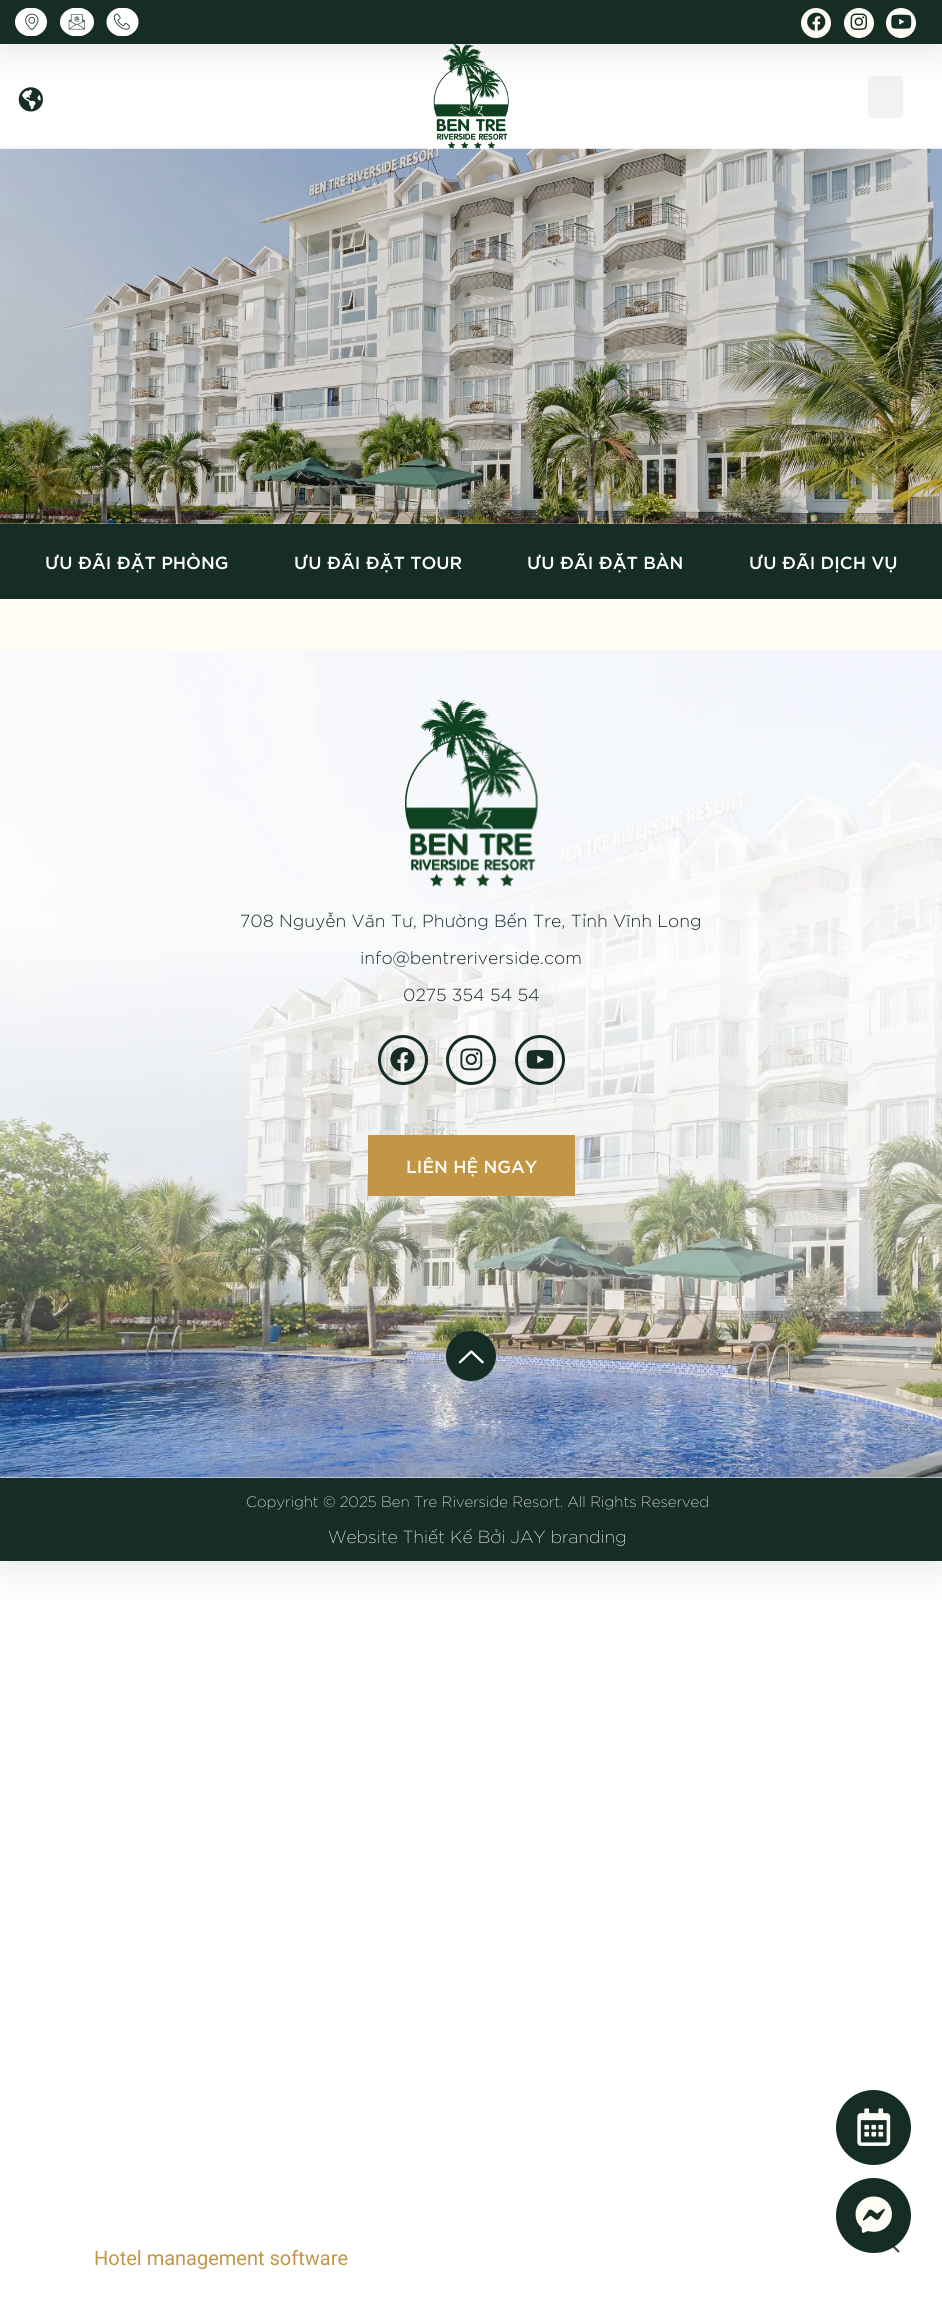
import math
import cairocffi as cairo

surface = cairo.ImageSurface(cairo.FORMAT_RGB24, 942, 2298)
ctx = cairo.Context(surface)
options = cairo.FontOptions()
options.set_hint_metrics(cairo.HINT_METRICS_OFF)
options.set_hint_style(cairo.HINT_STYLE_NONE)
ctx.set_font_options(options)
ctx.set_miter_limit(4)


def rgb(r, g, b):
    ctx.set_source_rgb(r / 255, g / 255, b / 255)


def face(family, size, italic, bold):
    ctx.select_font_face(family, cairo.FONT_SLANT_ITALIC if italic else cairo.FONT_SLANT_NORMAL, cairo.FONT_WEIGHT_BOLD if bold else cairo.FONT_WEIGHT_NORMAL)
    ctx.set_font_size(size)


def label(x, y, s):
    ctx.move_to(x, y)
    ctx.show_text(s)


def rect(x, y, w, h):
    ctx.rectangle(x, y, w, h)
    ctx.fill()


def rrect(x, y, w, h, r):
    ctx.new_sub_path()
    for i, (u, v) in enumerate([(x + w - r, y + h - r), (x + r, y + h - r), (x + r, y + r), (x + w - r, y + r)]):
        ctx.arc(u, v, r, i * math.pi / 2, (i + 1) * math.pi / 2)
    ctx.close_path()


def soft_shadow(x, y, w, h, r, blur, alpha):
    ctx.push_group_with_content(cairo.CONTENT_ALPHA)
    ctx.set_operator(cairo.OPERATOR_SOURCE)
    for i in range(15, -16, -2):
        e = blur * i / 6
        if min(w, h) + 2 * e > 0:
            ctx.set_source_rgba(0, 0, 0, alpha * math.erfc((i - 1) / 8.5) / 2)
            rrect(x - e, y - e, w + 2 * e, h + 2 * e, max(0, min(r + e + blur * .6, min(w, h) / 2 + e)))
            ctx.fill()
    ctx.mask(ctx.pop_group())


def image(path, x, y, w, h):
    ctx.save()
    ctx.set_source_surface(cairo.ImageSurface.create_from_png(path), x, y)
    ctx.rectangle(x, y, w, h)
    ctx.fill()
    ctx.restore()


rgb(255, 255, 255)
ctx.paint()
image('image6.png', 18, 87, 25, 25)
image('image7.png', 433, 44, 76, 105)
rgb(242, 242, 242)
rrect(868, 76, 35, 42, 4)
ctx.fill()
rgb(0, 0, 0)
soft_shadow(0, 6, 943, 44, 0, 19, 0.1)
rgb(22, 45, 38)
rect(0, 0, 942, 44)
ctx.save()
ctx.rectangle(6, 8, 459, 28)
ctx.clip()
rgb(255, 255, 255)
ctx.new_path()
ctx.move_to(31, 7.5)
ctx.curve_to(40, 7.5, 47, 14, 47, 22)
ctx.curve_to(47, 30, 40, 36.5, 31, 36.5)
ctx.curve_to(22, 36.5, 15, 30, 15, 22)
ctx.curve_to(15, 14, 22, 7.5, 31, 7.5)
ctx.close_path()
ctx.fill()
ctx.restore()
image('image0.png', 25, 13, 14, 17)
ctx.save()
ctx.rectangle(6, 8, 459, 28)
ctx.clip()
rgb(255, 255, 255)
ctx.new_path()
ctx.move_to(77, 7.5)
ctx.curve_to(86.5, 7.5, 94, 14, 94, 22)
ctx.curve_to(94, 30, 86.5, 36.5, 77, 36.5)
ctx.curve_to(67.5, 36.5, 60, 30, 60, 22)
ctx.curve_to(60, 14, 67.5, 7.5, 77, 7.5)
ctx.close_path()
ctx.fill()
ctx.restore()
image('image1.png', 68, 14, 17, 16)
ctx.save()
ctx.rectangle(6, 8, 459, 28)
ctx.clip()
rgb(255, 255, 255)
ctx.new_path()
ctx.move_to(122.5, 7.5)
ctx.curve_to(131.5, 7.5, 138.5, 14, 138.5, 22)
ctx.curve_to(138.5, 30, 131.5, 36.5, 122.5, 36.5)
ctx.curve_to(113.5, 36.5, 106.5, 30, 106.5, 22)
ctx.curve_to(106.5, 14, 113.5, 7.5, 122.5, 7.5)
ctx.close_path()
ctx.fill()
ctx.restore()
image('image2.png', 113, 13, 17, 17)
rgb(254, 252, 245)
ctx.arc(816, 23, 15, 0, 2 * math.pi)
ctx.fill()
image('image3.png', 807, 12, 19, 19)
ctx.arc(859, 23, 15, 0, 2 * math.pi)
ctx.fill()
image('image4.png', 850, 13, 17, 17)
ctx.arc(901, 23, 15, 0, 2 * math.pi)
ctx.fill()
image('image5.png', 891, 14, 21, 15)
image('image8.png', 0, 148, 942, 376)
rgb(22, 45, 38)
rect(0, 524, 942, 75)
face('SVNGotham', 17.5, 0, 0)
rgb(255, 255, 255)
label(45, 569, 'ƯU ĐÃI ĐẶT PHÒNG')
label(294, 569, 'ƯU ĐÃI ĐẶT TOUR')
label(527, 569, 'ƯU ĐÃI ĐẶT BÀN')
label(749, 569, 'ƯU ĐÃI DỊCH VỤ')
rgb(254, 252, 245)
rect(0, 599, 942, 51)
image('image9.png', 0, 650, 942, 828)
image('image10.png', 405, 700, 133, 187)
face('SVNGotham Light', 17.5, 0, 0)
rgb(22, 45, 38)
label(240, 927, '708 Nguyễn Văn Tư, Phường Bến Tre, Tỉnh Vĩnh Long')
label(360, 964, 'info@bentreriverside.com')
label(403, 1001, '0275 354 54 54')
ctx.new_path()
ctx.arc(403, 1060, 23.5, 0, 2 * math.pi)
ctx.set_line_width(3)
ctx.stroke()
image('image11.png', 390, 1047, 25, 25)
ctx.arc(471, 1060, 23.5, 0, 2 * math.pi)
ctx.stroke()
image('image12.png', 460, 1048, 23, 23)
ctx.arc(540, 1060, 23.5, 0, 2 * math.pi)
ctx.stroke()
image('image13.png', 526, 1050, 28, 19)
rgb(195, 150, 69)
rect(368, 1135, 207, 61)
face('SVNGotham', 17.5, 0, 0)
rgb(254, 252, 245)
label(406, 1173, 'LIÊN HỆ NGAY')
rgb(22, 45, 38)
ctx.new_path()
ctx.arc(471, 1356, 25, 0, 2 * math.pi)
ctx.fill()
image('image14.png', 458, 1350, 26, 14)
ctx.arc(873.5, 2127.5, 37.5, 0, 2 * math.pi)
ctx.fill()
image('image15.png', 857, 2108, 34, 38)
image('image17.png', 881, 2246, 19, 7)
ctx.arc(873.5, 2215.5, 37.5, 0, 2 * math.pi)
ctx.fill()
image('image16.png', 855, 2196, 37, 37)
rgb(0, 0, 0)
soft_shadow(0, 1484, 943, 84, 0, 19, 0.1)
rgb(22, 45, 38)
rect(0, 1478, 942, 83)
face('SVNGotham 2 Light', 15, 0, 0)
rgb(254, 252, 245)
label(246, 1507, 'Copyright © 2025 Ben Tre Riverside Resort. All Rights Reserved')
face('SVNGotham 2 Light', 17.5, 0, 0)
label(328, 1543, 'Website Thiết Kế Bởi JAY branding')
face('Roboto', 20, 0, 0)
rgb(195, 150, 69)
label(94, 2265, 'Hotel management software')
surface.write_to_png('render.png')
